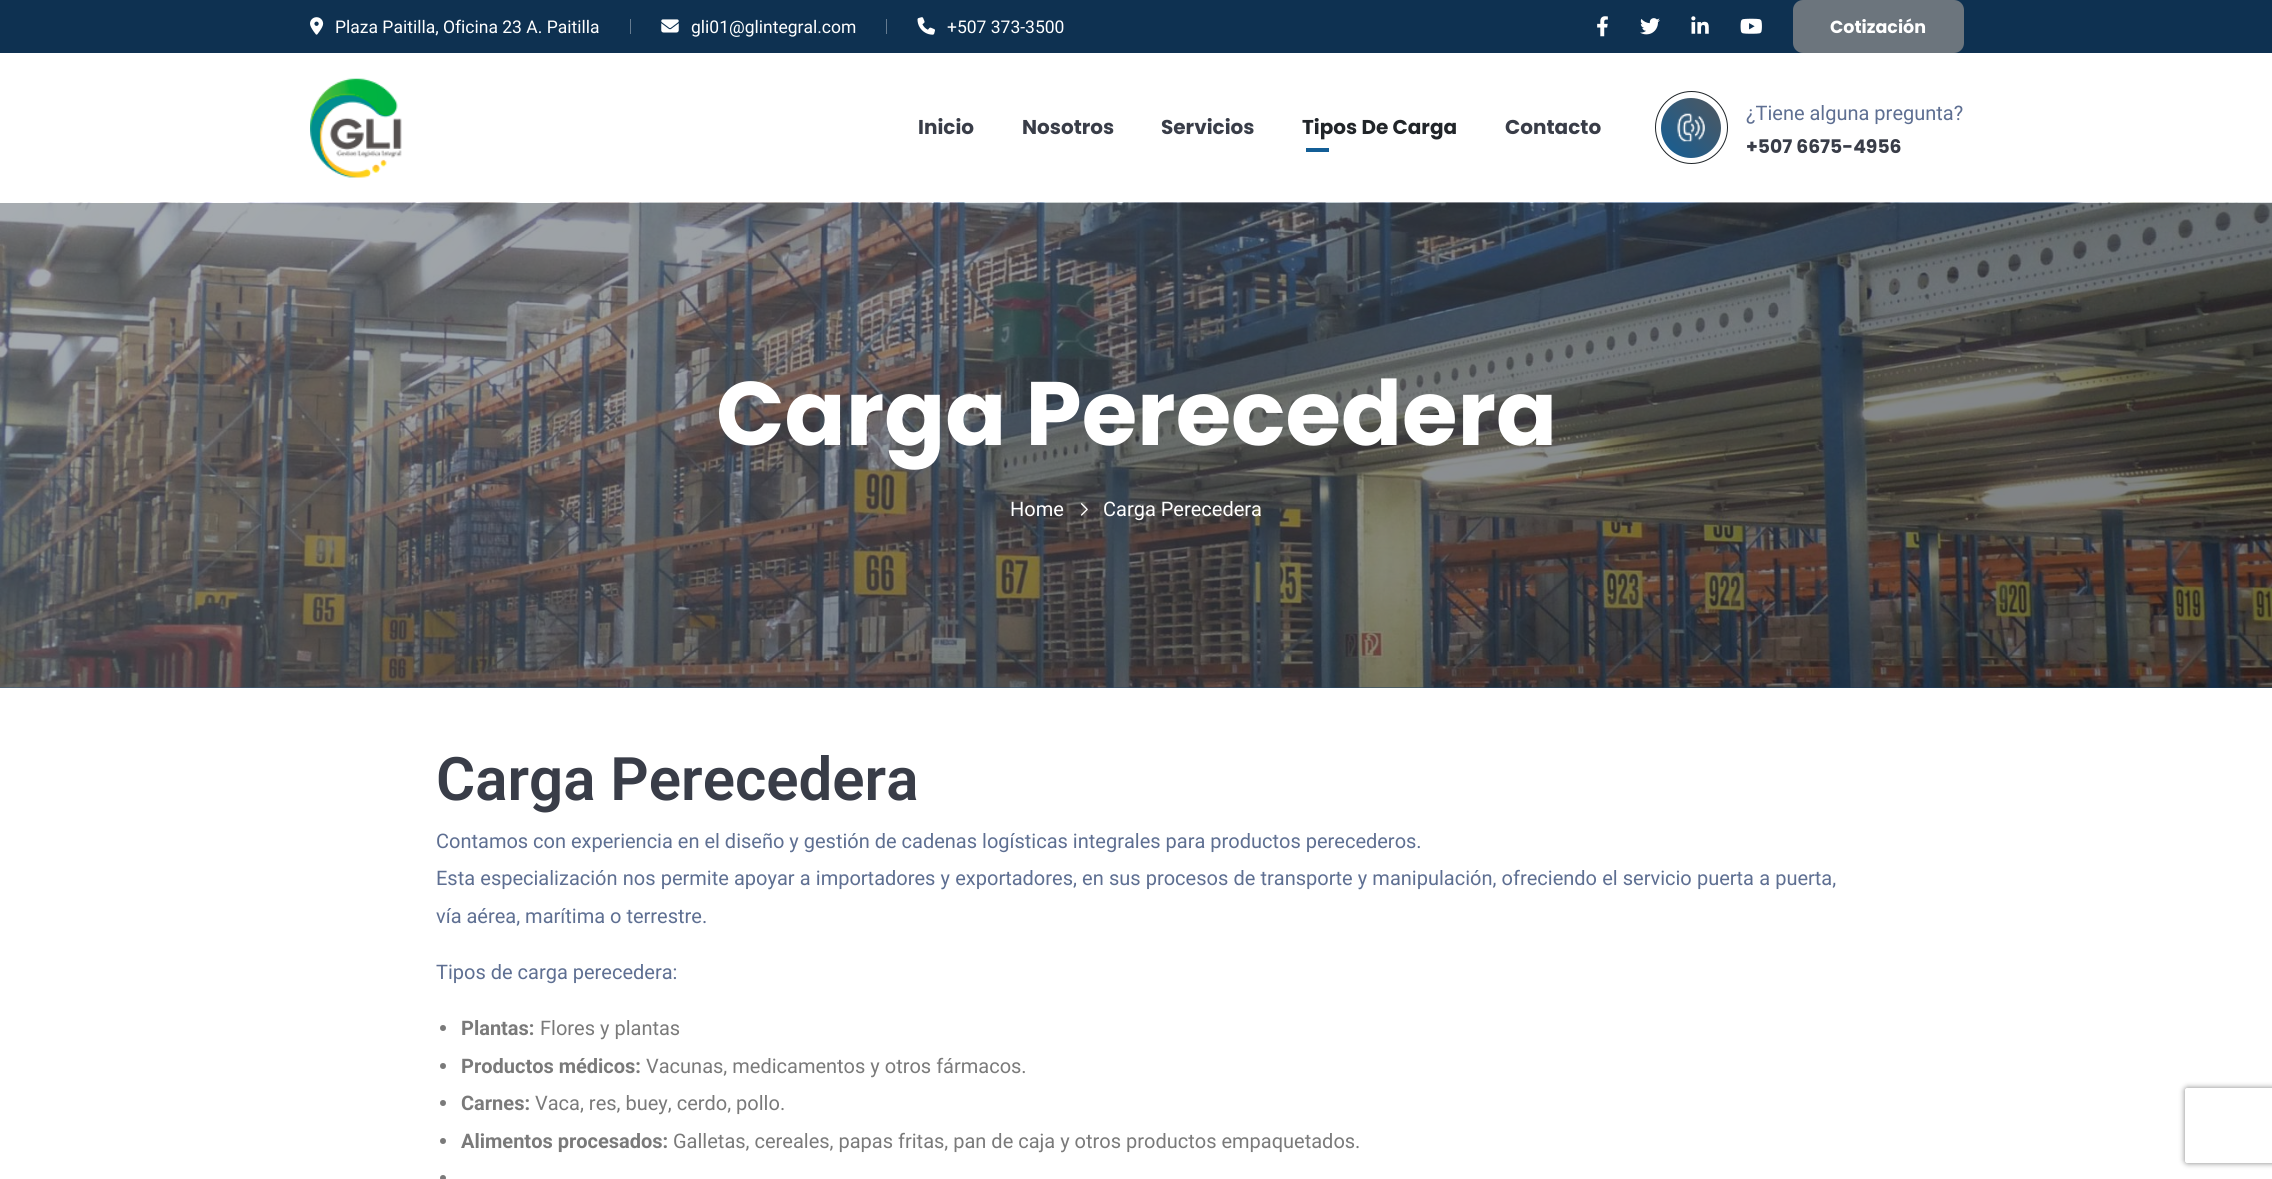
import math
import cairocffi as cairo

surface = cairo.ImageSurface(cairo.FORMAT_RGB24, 2272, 1179)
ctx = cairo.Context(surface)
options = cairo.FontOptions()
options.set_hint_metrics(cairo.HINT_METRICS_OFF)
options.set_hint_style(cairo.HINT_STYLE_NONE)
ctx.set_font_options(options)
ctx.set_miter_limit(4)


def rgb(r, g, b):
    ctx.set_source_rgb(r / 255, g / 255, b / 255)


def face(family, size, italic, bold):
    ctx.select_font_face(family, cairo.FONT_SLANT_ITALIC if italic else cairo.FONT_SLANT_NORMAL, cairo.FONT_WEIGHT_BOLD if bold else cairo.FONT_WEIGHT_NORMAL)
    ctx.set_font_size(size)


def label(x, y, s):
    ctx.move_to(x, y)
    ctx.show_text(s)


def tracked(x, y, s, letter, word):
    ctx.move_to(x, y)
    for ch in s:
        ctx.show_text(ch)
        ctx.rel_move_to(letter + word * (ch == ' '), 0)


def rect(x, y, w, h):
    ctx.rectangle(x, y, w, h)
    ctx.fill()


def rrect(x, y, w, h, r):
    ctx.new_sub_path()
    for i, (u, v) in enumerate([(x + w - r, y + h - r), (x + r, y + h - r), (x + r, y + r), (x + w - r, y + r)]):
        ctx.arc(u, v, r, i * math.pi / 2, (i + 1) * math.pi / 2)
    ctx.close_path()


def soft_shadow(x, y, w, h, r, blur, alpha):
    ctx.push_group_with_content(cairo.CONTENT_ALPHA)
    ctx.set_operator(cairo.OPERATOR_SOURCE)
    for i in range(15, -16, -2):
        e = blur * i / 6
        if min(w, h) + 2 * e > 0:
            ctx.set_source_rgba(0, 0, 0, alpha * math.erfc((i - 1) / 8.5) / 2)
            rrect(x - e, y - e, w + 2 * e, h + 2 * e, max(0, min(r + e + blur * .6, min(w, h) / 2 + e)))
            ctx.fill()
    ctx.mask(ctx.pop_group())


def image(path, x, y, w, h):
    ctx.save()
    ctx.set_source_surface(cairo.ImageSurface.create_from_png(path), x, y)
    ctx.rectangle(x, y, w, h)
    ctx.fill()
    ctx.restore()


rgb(255, 255, 255)
ctx.paint()
rgb(14, 49, 81)
rect(0, 0, 2272, 53)
image('image0.png', 310, 17, 14, 18)
face('Roboto', 17.5, 0, 0)
rgb(255, 255, 255)
label(335, 33, 'Plaza Paitilla, Oficina 23 A. Paitilla')
rgb(101, 123, 144)
rect(630, 19, 1, 15)
image('image1.png', 661, 19, 18, 14)
rgb(255, 255, 255)
label(691, 33, 'gli01@glintegral.com')
rgb(101, 123, 144)
rect(886, 19, 1, 15)
image('image2.png', 917, 17, 18, 18)
rgb(255, 255, 255)
label(947, 33, '+507 373-3500')
image('image3.png', 1597, 16, 11, 21)
image('image4.png', 1640, 18, 20, 17)
image('image5.png', 1691, 16, 18, 18)
image('image6.png', 1740, 18, 22, 16)
rgb(108, 117, 125)
rrect(1793, 0, 171, 53, 10)
ctx.fill()
face('Poppins', 17.5, 0, 1)
rgb(255, 255, 255)
label(1830, 33, 'Cotización')
image('image7.png', 310, 78, 92, 100)
face('Poppins', 20, 0, 1)
rgb(57, 61, 72)
label(918, 134, 'Inicio')
label(1022, 134, 'Nosotros')
label(1161, 134, 'Servicios')
rgb(33, 37, 41)
label(1302, 134, 'Tipos De Carga')
rgb(19, 94, 150)
rect(1306, 148, 23, 4)
rgb(57, 61, 72)
label(1505, 134, 'Contacto')
ctx.new_path()
ctx.arc(1691.5, 127.5, 36, 0, 2 * math.pi)
rgb(29, 35, 39)
ctx.set_line_width(1)
ctx.stroke()
gradient = cairo.LinearGradient(1661, 158, 1721, 98)
gradient.add_color_stop_rgba(0, 0.075, 0.369, 0.588, 1)
gradient.add_color_stop_rgba(1, 0.314, 0.341, 0.369, 1)
ctx.set_source(gradient)
ctx.arc(1691, 128, 30, 0, 2 * math.pi)
ctx.fill()
image('image8.png', 1677, 113, 28, 29)
face('Roboto', 20, 0, 0)
rgb(94, 111, 146)
label(1746, 120, '¿Tiene alguna pregunta?')
face('Poppins', 18.75, 0, 1)
rgb(57, 61, 72)
label(1746, 153, '+507 6675-4956')
rgb(0, 91, 172)
rect(0, 687, 2272, 1)
image('image9.png', 0, 202, 2272, 486)
gradient = cairo.LinearGradient(447, -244, 1826, 1134)
gradient.add_color_stop_rgba(0, 0.424, 0.459, 0.49, 0.6)
gradient.add_color_stop_rgba(1, 0.129, 0.145, 0.161, 0.6)
ctx.set_source(gradient)
rect(0, 203, 2272, 485)
face('Poppins', 90, 0, 1)
rgb(255, 255, 255)
label(716, 445, 'Carga Perecedera')
face('Roboto', 20, 0, 0)
label(1010, 516, 'Home')
image('image10.png', 1080, 503, 8, 13)
label(1103, 516, 'Carga Perecedera')
face('Roboto SemiBold', 60, 0, 0)
rgb(57, 61, 72)
label(436, 800, 'Carga Perecedera')
face('Roboto', 20, 0, 0)
rgb(94, 111, 146)
label(436, 848, 'Contamos con experiencia en el diseño y gestión de cadenas logísticas integrales para productos perecederos.')
tracked(436, 885, 'Esta especialización nos permite apoyar a importadores y exportadores, en sus procesos de transporte y manipulación, ofreciendo el servicio puerta a puerta,', 0, 0.2)
label(436, 923, 'vía aérea, marítima o terrestre.')
label(436, 979, 'Tipos de carga perecedera:')
rgb(122, 122, 122)
ctx.new_path()
ctx.arc(443, 1028, 3, 0, 2 * math.pi)
ctx.fill()
face('Roboto', 20, 0, 1)
label(461, 1035, 'Plantas:')
face('Roboto', 20, 0, 0)
label(540, 1035, 'Flores y plantas')
ctx.new_path()
ctx.arc(443, 1066, 3, 0, 2 * math.pi)
ctx.fill()
face('Roboto', 20, 0, 1)
label(461, 1073, 'Productos médicos:')
face('Roboto', 20, 0, 0)
label(646, 1073, 'Vacunas, medicamentos y otros fármacos.')
ctx.new_path()
ctx.arc(443, 1103, 3, 0, 2 * math.pi)
ctx.fill()
face('Roboto', 20, 0, 1)
label(461, 1110, 'Carnes:')
face('Roboto', 20, 0, 0)
label(535, 1110, 'Vaca, res, buey, cerdo, pollo.')
ctx.new_path()
ctx.arc(443, 1141, 3, 0, 2 * math.pi)
ctx.fill()
face('Roboto', 20, 0, 1)
label(461, 1148, 'Alimentos procesados:')
face('Roboto', 20, 0, 0)
label(673, 1148, 'Galletas, cereales, papas fritas, pan de caja y otros productos empaquetados.')
ctx.new_path()
ctx.arc(443, 1178, 3, 0, 2 * math.pi)
ctx.fill()
ctx.save()
ctx.set_fill_rule(cairo.FILL_RULE_EVEN_ODD)
ctx.new_path()
ctx.move_to(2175, 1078)
ctx.line_to(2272, 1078)
ctx.line_to(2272, 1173)
ctx.line_to(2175, 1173)
ctx.close_path()
ctx.move_to(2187.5, 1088)
ctx.line_to(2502.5, 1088)
ctx.curve_to(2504, 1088, 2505, 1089, 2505, 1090.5)
ctx.line_to(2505, 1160.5)
ctx.curve_to(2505, 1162, 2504, 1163, 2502.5, 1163)
ctx.line_to(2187.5, 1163)
ctx.curve_to(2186, 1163, 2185, 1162, 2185, 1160.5)
ctx.line_to(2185, 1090.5)
ctx.curve_to(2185, 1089, 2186, 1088, 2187.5, 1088)
ctx.close_path()
ctx.clip()
rgb(128, 128, 128)
soft_shadow(2185, 1088, 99, 75, 2.5, 3, 1)
ctx.restore()
surface.write_to_png('render.png')
